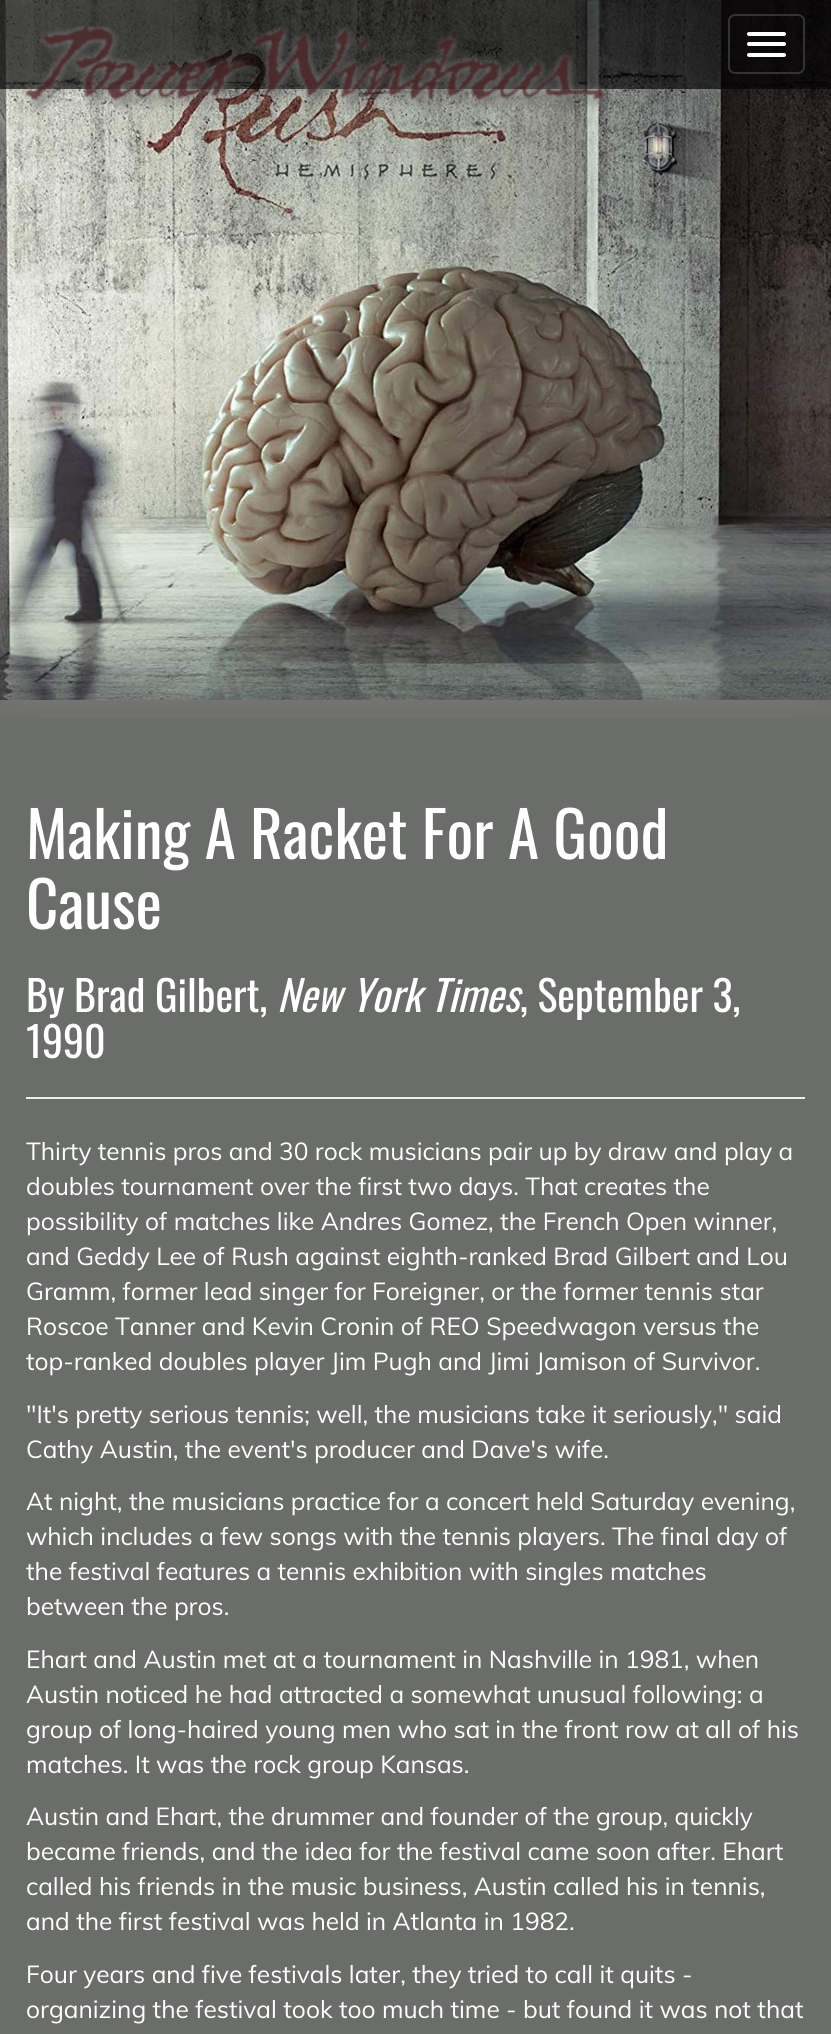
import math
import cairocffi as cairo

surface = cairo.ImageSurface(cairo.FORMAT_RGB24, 831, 2034)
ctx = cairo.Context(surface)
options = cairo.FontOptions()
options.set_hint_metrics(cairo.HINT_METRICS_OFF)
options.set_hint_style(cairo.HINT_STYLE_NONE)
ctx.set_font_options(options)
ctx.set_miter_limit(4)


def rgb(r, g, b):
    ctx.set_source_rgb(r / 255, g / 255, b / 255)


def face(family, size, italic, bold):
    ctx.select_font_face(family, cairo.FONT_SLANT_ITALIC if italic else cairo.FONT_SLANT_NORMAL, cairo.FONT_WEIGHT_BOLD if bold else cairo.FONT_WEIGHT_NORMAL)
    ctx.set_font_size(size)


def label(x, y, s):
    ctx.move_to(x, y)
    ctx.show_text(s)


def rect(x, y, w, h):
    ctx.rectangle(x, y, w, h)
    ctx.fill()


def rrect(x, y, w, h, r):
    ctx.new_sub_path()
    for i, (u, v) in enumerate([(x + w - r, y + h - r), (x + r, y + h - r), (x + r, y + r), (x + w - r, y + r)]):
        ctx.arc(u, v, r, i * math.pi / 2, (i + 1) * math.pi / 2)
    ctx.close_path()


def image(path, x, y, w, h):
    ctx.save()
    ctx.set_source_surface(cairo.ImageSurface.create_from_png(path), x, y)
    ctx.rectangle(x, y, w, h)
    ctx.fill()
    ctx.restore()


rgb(107, 109, 106)
ctx.paint()
image('image0.png', 0, 0, 831, 718)
ctx.set_source_rgba(0, 0, 0, 0.65)
rect(0, 0, 831, 89)
image('image1.png', 25, 26, 590, 88)
rrect(729, 15, 75, 58, 6)
rgb(51, 51, 51)
ctx.stroke()
rgb(255, 255, 255)
rrect(747, 32, 39, 4, 2)
ctx.fill()
rrect(747, 42, 39, 4, 2)
ctx.fill()
rrect(747, 53, 39, 4, 2)
ctx.fill()
face('Oswald', 63, 0, 0)
label(26, 859, 'Making A Racket For A Good')
label(26, 929, 'Cause')
face('Oswald', 42, 0, 0)
label(26, 1012, 'By Brad Gilbert,')
face('Oswald', 42, 1, 0)
label(277, 1012, 'New York Times')
face('Oswald', 42, 0, 0)
label(520, 1012, ', September 3,')
label(26, 1058, '1990')
rgb(238, 238, 238)
rect(26, 1097, 779, 2)
face('Muli', 24.5, 0, 0)
rgb(255, 255, 255)
label(26, 1160, 'Thirty tennis pros and 30 rock musicians pair up by draw and play a')
label(26, 1195, 'doubles tournament over the first two days. That creates the')
label(26, 1230, 'possibility of matches like Andres Gomez, the French Open winner,')
label(26, 1265, 'and Geddy Lee of Rush against eighth-ranked Brad Gilbert and Lou')
label(26, 1300, 'Gramm, former lead singer for Foreigner, or the former tennis star')
label(26, 1335, 'Roscoe Tanner and Kevin Cronin of REO Speedwagon versus the')
label(26, 1370, 'top-ranked doubles player Jim Pugh and Jimi Jamison of Survivor.')
label(26, 1423, '"It\'s pretty serious tennis; well, the musicians take it seriously," said')
label(26, 1458, 'Cathy Austin, the event\'s producer and Dave\'s wife.')
label(26, 1510, 'At night, the musicians practice for a concert held Saturday evening,')
label(26, 1545, 'which includes a few songs with the tennis players. The final day of')
label(26, 1580, 'the festival features a tennis exhibition with singles matches')
label(26, 1615, 'between the pros.')
label(26, 1668, 'Ehart and Austin met at a tournament in Nashville in 1981, when')
label(26, 1703, 'Austin noticed he had attracted a somewhat unusual following: a')
label(26, 1738, 'group of long-haired young men who sat in the front row at all of his')
label(26, 1773, 'matches. It was the rock group Kansas.')
label(26, 1825, 'Austin and Ehart, the drummer and founder of the group, quickly')
label(26, 1860, 'became friends, and the idea for the festival came soon after. Ehart')
label(26, 1895, 'called his friends in the music business, Austin called his in tennis,')
label(26, 1930, 'and the first festival was held in Atlanta in 1982.')
label(26, 1983, 'Four years and five festivals later, they tried to call it quits -')
label(26, 2018, 'organizing the festival took too much time - but found it was not that')
surface.write_to_png('render.png')
